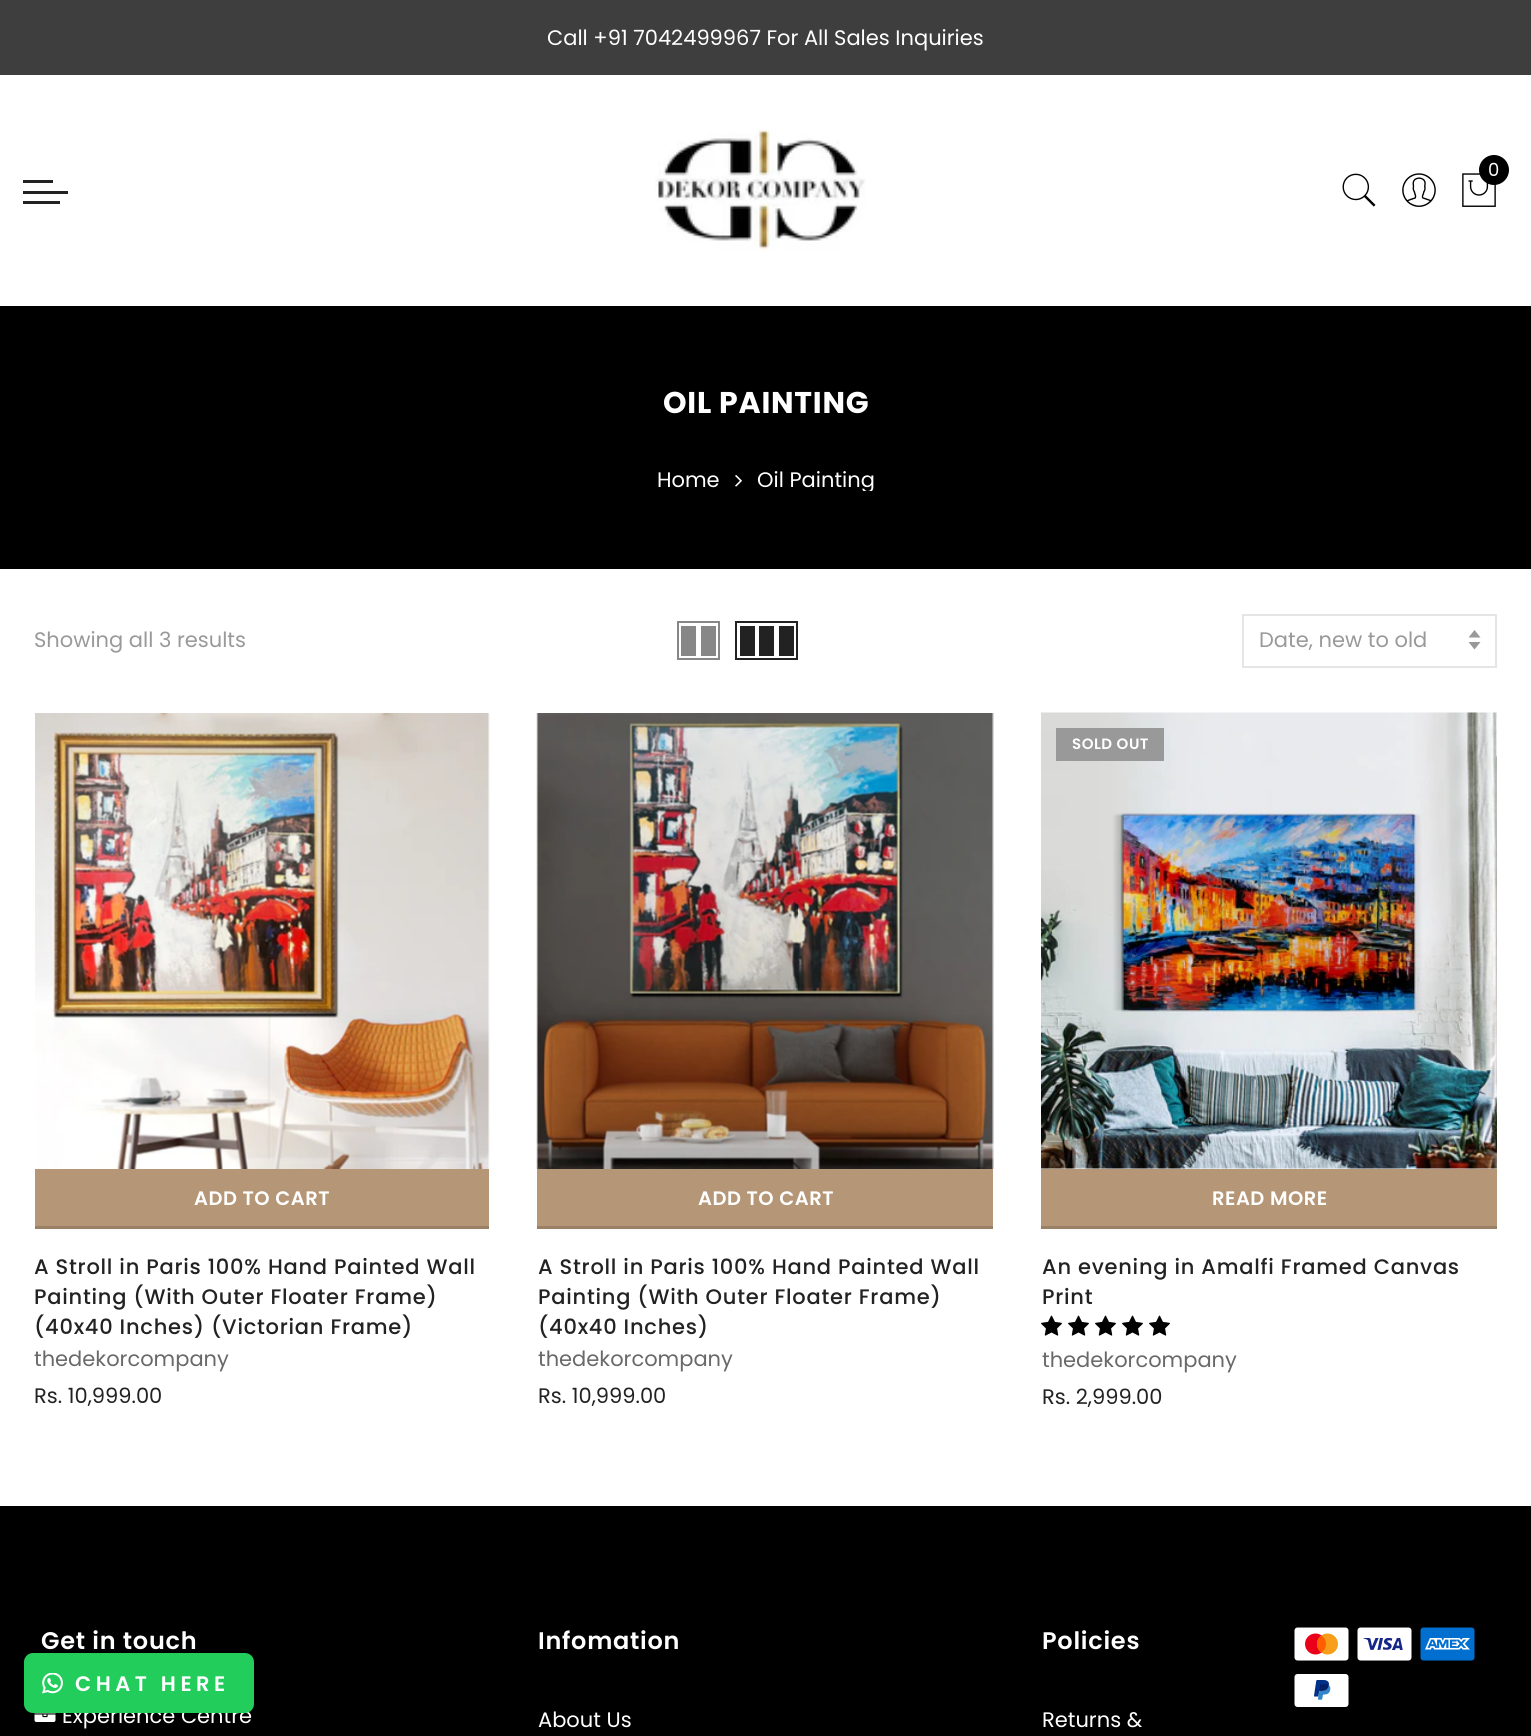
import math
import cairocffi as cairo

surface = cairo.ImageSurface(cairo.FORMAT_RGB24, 1531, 1736)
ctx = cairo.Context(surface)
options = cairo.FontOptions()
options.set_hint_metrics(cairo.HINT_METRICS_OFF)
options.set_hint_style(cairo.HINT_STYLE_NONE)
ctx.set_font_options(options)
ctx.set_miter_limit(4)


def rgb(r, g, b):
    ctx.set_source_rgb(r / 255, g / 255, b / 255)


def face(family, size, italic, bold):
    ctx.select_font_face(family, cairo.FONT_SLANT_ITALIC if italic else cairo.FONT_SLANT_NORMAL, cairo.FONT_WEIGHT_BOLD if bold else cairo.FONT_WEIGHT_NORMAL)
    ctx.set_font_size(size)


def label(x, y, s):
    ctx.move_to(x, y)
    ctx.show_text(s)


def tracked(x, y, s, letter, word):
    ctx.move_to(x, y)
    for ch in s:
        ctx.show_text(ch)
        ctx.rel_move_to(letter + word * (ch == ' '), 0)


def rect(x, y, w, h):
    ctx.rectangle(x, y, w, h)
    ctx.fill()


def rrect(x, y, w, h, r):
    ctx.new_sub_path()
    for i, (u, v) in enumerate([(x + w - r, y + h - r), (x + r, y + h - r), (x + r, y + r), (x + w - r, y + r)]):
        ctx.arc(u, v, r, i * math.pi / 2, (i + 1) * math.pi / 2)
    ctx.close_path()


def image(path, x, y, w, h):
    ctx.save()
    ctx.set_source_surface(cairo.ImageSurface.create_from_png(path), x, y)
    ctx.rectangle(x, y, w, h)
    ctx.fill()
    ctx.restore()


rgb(255, 255, 255)
ctx.paint()
rgb(62, 62, 62)
rect(0, 0, 1531, 75)
face('Poppins', 21, 0, 0)
rgb(255, 255, 255)
label(547, 45, 'Call +91 7042499967 For All Sales Inquiries')
image('image0.png', 655, 129, 211, 122)
image('image1.png', 1462, 173, 34, 34)
rgb(0, 0, 0)
ctx.arc(1494, 170, 15, 0, 2 * math.pi)
ctx.fill()
face('Poppins', 18, 0, 0)
rgb(255, 255, 255)
label(1488, 176, '0')
image('image2.png', 1342, 173, 34, 34)
image('image3.png', 1402, 173, 34, 34)
rgb(34, 34, 34)
rect(23, 180, 30, 3)
rect(23, 191, 45, 3)
rect(23, 201, 37, 3)
rgb(0, 0, 0)
rect(0, 306, 1531, 263)
face('Poppins', 30, 0, 1)
rgb(255, 255, 255)
tracked(663, 413, 'OIL PAINTING', 0.75, 0)
face('Poppins', 21, 0, 0)
label(657, 487, 'Home')
image('image4.png', 735, 475, 7, 12)
ctx.save()
ctx.rectangle(657, 470, 218, 21)
ctx.clip()
label(757, 487, 'Oil Painting')
ctx.restore()
rgb(153, 153, 153)
label(34, 647, 'Showing all 3 results')
ctx.rectangle(678, 622, 41, 37)
rgb(135, 135, 135)
ctx.stroke()
rect(701, 626, 15, 30)
rect(681, 626, 15, 30)
ctx.rectangle(736, 622, 61, 37)
rgb(34, 34, 34)
ctx.stroke()
rect(779, 626, 15, 30)
rect(759, 626, 15, 30)
rect(740, 626, 15, 30)
image('image5.png', 1469, 630, 12, 20)
ctx.rectangle(1243, 615, 253, 52)
rgb(229, 229, 229)
ctx.stroke()
rgb(153, 153, 153)
label(1259, 647, 'Date, new to old')
image('image6.png', 35, 713, 455, 456)
rgb(181, 150, 119)
rect(35, 1169, 454, 57)
rgb(154, 128, 101)
rect(35, 1226, 454, 3)
face('Poppins SemiBold', 19.5, 0, 0)
rgb(255, 255, 255)
tracked(194, 1205, 'ADD TO CART', 0.5, 0)
face('Poppins Medium', 21, 0, 0)
rgb(34, 34, 34)
tracked(34, 1274, 'A Stroll in Paris 100% Hand Painted Wall', 0.75, 0)
tracked(34, 1304, 'Painting (With Outer Floater Frame)', 0.75, 0)
tracked(34, 1334, '(40x40 Inches) (Victorian Frame)', 0.75, 0)
face('Poppins', 21, 0, 0)
rgb(105, 105, 105)
label(34, 1366, 'thedekorcompany')
rgb(34, 34, 34)
label(34, 1403, 'Rs. 10,999.00')
image('image7.png', 536, 713, 458, 456)
rgb(181, 150, 119)
rect(537, 1169, 456, 57)
rgb(154, 128, 101)
rect(537, 1226, 456, 3)
face('Poppins SemiBold', 19.5, 0, 0)
rgb(255, 255, 255)
tracked(698, 1205, 'ADD TO CART', 0.5, 0)
face('Poppins Medium', 21, 0, 0)
rgb(34, 34, 34)
tracked(538, 1274, 'A Stroll in Paris 100% Hand Painted Wall', 0.75, 0)
tracked(538, 1304, 'Painting (With Outer Floater Frame)', 0.75, 0)
tracked(538, 1334, '(40x40 Inches)', 0.75, 0)
face('Poppins', 21, 0, 0)
rgb(105, 105, 105)
label(538, 1366, 'thedekorcompany')
rgb(34, 34, 34)
label(538, 1403, 'Rs. 10,999.00')
image('image8.png', 1041, 712, 456, 457)
rgb(153, 153, 153)
rect(1056, 728, 108, 33)
face('Poppins SemiBold', 15, 0, 0)
rgb(255, 255, 255)
tracked(1072, 749, 'SOLD OUT', 0.5, 0)
rgb(181, 150, 119)
rect(1041, 1169, 456, 57)
rgb(154, 128, 101)
rect(1041, 1226, 456, 3)
face('Poppins SemiBold', 19.5, 0, 0)
rgb(255, 255, 255)
tracked(1212, 1205, 'READ MORE', 0.5, 0)
face('Poppins Medium', 21, 0, 0)
rgb(34, 34, 34)
tracked(1042, 1274, 'An evening in Amalfi Framed Canvas', 0.75, 0)
tracked(1042, 1304, 'Print', 0.75, 0)
image('image9.png', 1041, 1315, 21, 21)
image('image9.png', 1068, 1315, 21, 21)
image('image9.png', 1095, 1315, 21, 21)
image('image9.png', 1122, 1315, 21, 21)
image('image9.png', 1149, 1315, 21, 21)
face('Poppins', 21, 0, 0)
rgb(105, 105, 105)
label(1042, 1367, 'thedekorcompany')
rgb(34, 34, 34)
label(1042, 1404, 'Rs. 2,999.00')
rgb(0, 0, 0)
rect(0, 1506, 1531, 230)
face('Poppins SemiBold', 24, 0, 0)
rgb(255, 255, 255)
tracked(41, 1649, 'Get in touch', 0.75, 0)
image('image10.png', 34, 1713, 22, 9)
face('Poppins', 21, 0, 0)
label(62, 1723, 'Experience Centre')
face('Poppins SemiBold', 24, 0, 0)
tracked(538, 1649, 'Infomation', 0.75, 0)
face('Poppins', 21, 0, 0)
label(538, 1727, 'About Us')
face('Poppins SemiBold', 24, 0, 0)
tracked(1042, 1649, 'Policies', 0.75, 0)
face('Poppins', 21, 0, 0)
label(1042, 1727, 'Returns &')
image('image11.png', 1294, 1627, 55, 34)
image('image12.png', 1357, 1627, 55, 34)
image('image13.png', 1420, 1627, 55, 34)
image('image14.png', 1294, 1674, 55, 33)
rgb(34, 205, 91)
rrect(24, 1653, 230, 60, 9)
ctx.fill()
image('image15.png', 42, 1673, 21, 21)
face('Poppins SemiBold', 21, 0, 0)
rgb(255, 255, 255)
tracked(75, 1691, 'CHAT HERE', 4.5, 0)
surface.write_to_png('render.png')
